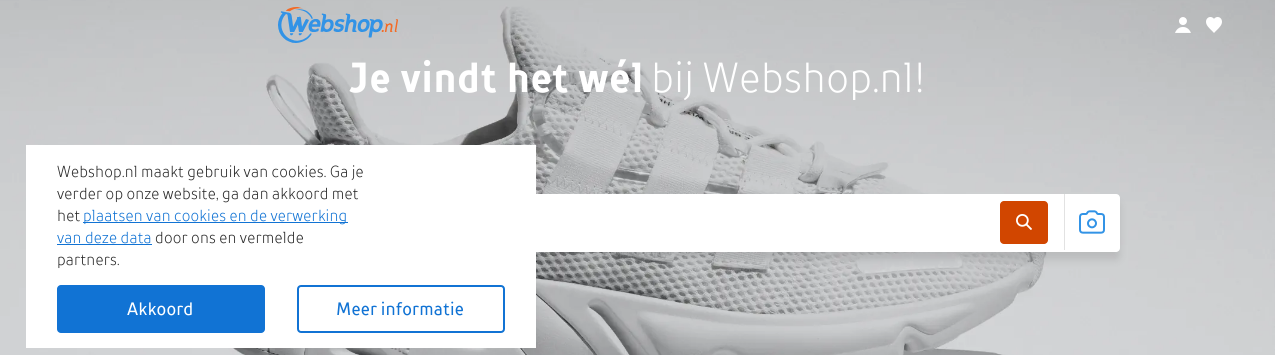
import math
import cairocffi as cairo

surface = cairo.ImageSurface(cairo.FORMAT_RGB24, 1275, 355)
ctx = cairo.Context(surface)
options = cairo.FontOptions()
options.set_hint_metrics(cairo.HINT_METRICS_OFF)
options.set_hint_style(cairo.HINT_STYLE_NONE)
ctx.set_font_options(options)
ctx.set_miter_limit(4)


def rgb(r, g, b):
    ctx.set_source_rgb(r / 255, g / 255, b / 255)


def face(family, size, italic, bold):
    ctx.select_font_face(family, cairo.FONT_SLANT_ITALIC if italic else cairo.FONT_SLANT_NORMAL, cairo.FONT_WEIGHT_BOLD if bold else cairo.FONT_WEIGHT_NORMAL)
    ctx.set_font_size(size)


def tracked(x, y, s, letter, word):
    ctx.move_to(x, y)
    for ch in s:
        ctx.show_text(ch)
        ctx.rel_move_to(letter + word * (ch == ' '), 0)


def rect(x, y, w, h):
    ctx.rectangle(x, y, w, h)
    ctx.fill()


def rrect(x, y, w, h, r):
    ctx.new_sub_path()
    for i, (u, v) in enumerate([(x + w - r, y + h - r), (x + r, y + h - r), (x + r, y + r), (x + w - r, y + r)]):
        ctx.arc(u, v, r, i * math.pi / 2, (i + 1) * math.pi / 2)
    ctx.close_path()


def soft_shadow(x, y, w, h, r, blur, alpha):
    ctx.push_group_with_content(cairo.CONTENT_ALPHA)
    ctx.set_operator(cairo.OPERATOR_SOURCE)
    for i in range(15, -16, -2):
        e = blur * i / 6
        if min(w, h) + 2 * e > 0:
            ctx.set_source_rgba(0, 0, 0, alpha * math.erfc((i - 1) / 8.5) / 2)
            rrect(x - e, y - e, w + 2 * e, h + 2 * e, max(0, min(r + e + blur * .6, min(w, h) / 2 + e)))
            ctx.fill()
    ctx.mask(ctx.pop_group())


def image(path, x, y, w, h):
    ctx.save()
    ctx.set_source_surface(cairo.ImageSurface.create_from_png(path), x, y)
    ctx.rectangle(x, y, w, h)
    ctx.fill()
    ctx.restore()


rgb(255, 255, 255)
ctx.paint()
image('image0.png', 0, 0, 1275, 355)
image('image1.png', 278, 7, 120, 36)
image('image2.png', 1175, 17, 16, 16)
image('image3.png', 1206, 17, 16, 16)
face('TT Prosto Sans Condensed', 42, 0, 1)
rgb(255, 255, 255)
tracked(349, 92, 'Je vindt het wél', 0.4, 0)
face('TT Prosto Sans Condensed Light', 42, 0, 0)
tracked(651, 92, 'bij Webshop.nl!', 0.4, 0)
rgb(0, 0, 0)
soft_shadow(156, 202, 964, 58, 4, 4, 0.1)
rgb(255, 255, 255)
rrect(156, 194, 964, 58, 4)
ctx.fill()
rgb(209, 70, 0)
rrect(1000, 201, 48, 43, 4)
ctx.fill()
image('image4.png', 1016, 214, 16, 16)
rgb(226, 226, 226)
rect(1064, 194, 1, 56)
image('image5.png', 1079, 210, 26, 24)
rgb(255, 255, 255)
rect(26, 145, 510, 203)
face('TT Prosto Sans Condensed Light', 16, 0, 0)
rgb(42, 42, 42)
tracked(57, 177, 'Webshop.nl maakt gebruik van cookies. Ga je', 0.2, 0)
tracked(57, 199, 'verder op onze website, ga dan akkoord met', 0.2, 0)
tracked(57, 221, 'het', 0.2, 0)
rgb(17, 115, 212)
rect(83, 222, 265, 1)
tracked(83, 221, 'plaatsen van cookies en de verwerking', 0.2, 0)
tracked(57, 243, 'van deze data', 0.2, 0)
rect(57, 244, 95, 1)
rgb(42, 42, 42)
tracked(155, 243, 'door ons en vermelde', 0.2, 0)
tracked(57, 265, 'partners.', 0.2, 0)
rgb(17, 115, 212)
rrect(57, 285, 208, 48, 4)
ctx.fill()
face('TT Prosto Sans Condensed', 18, 0, 0)
rgb(255, 255, 255)
tracked(127, 315, 'Akkoord', 0.2, 0)
rrect(298, 286, 206, 46, 3)
rgb(17, 115, 212)
ctx.stroke()
tracked(336, 315, 'Meer informatie', 0.2, 0)
surface.write_to_png('render.png')
